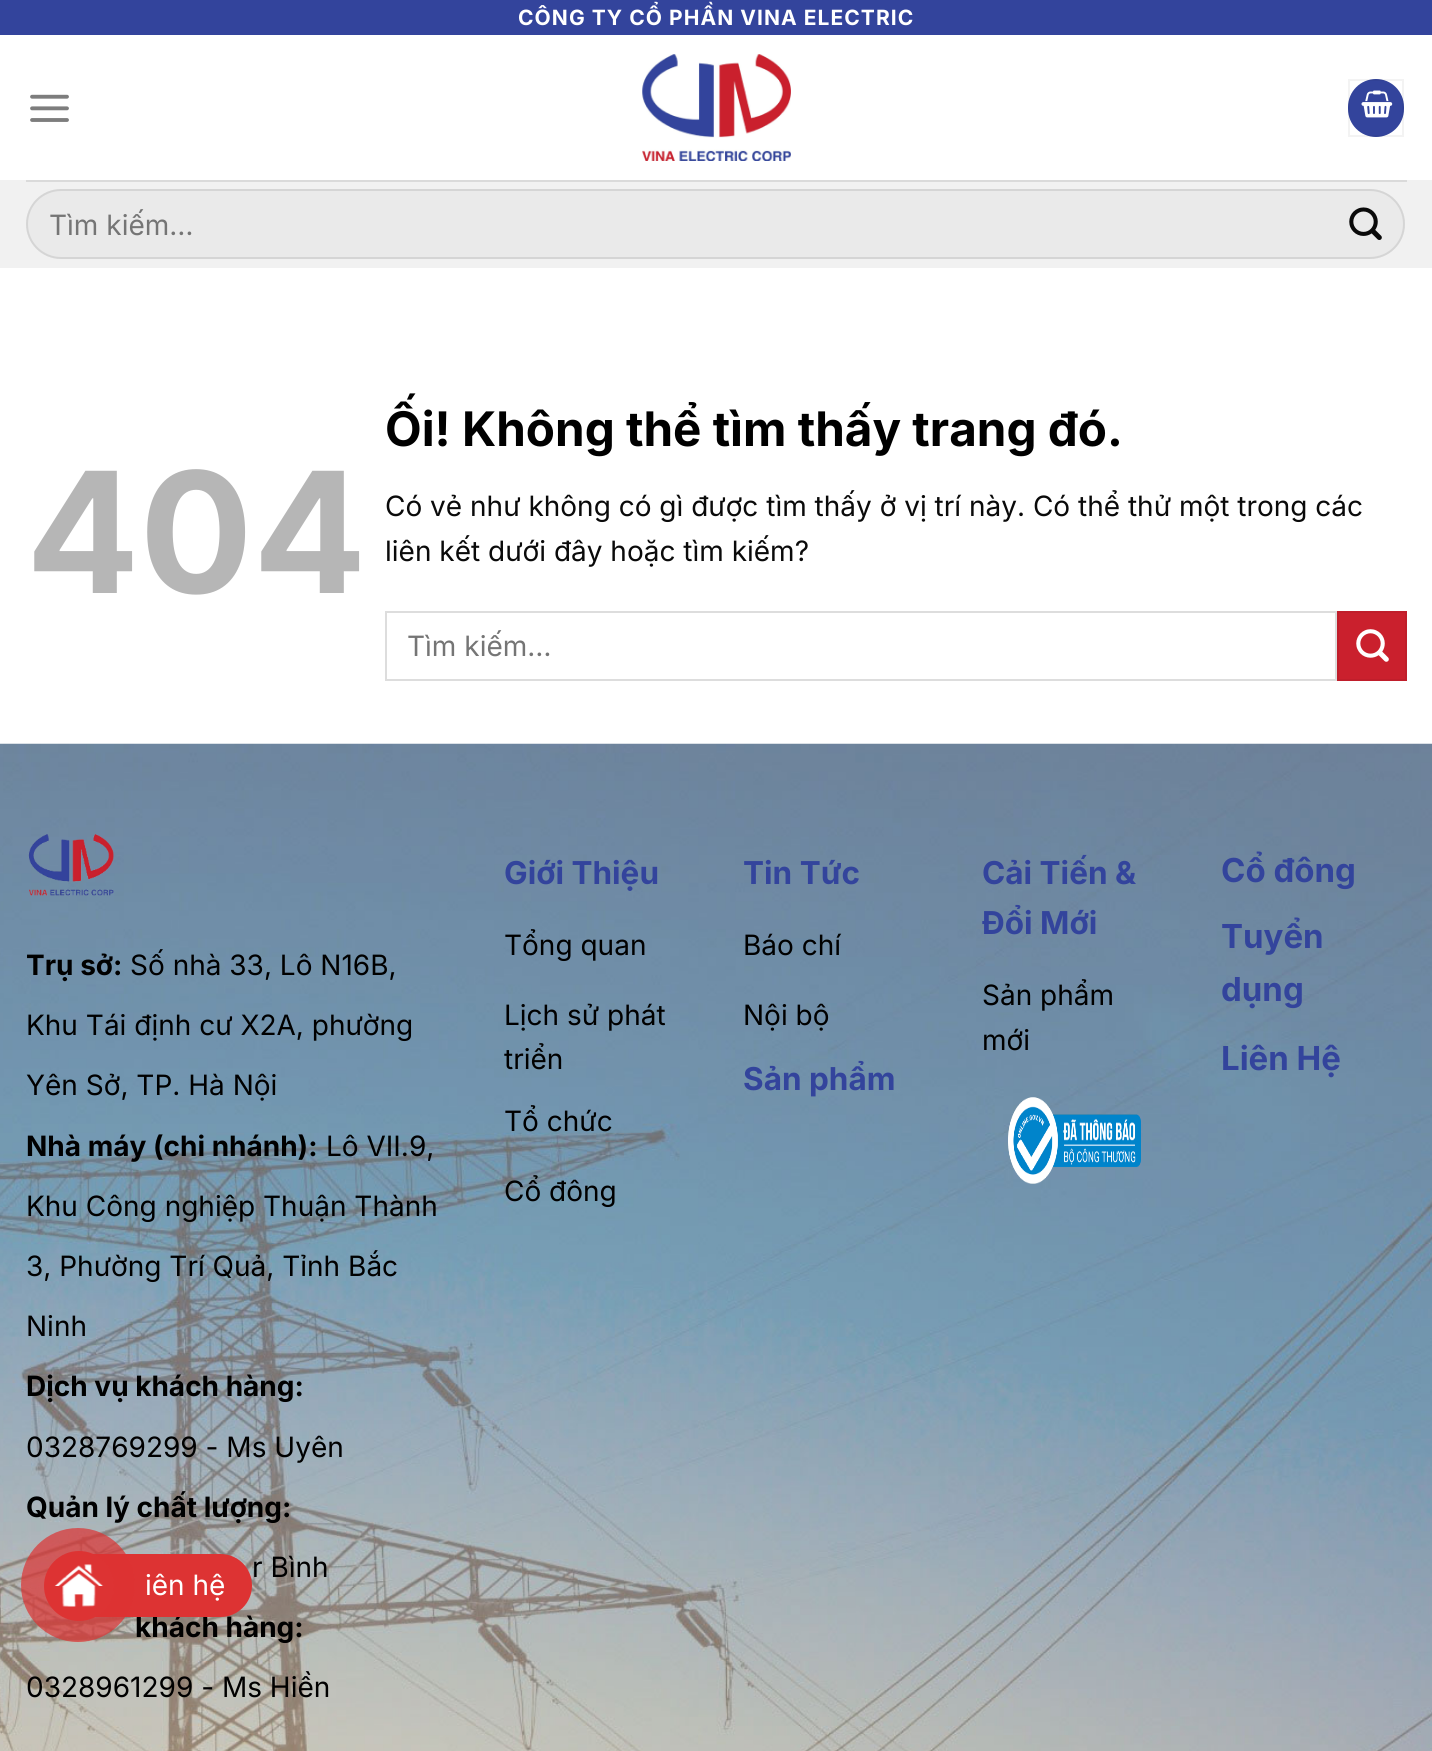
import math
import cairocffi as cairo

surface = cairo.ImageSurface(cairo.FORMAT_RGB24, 1432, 1751)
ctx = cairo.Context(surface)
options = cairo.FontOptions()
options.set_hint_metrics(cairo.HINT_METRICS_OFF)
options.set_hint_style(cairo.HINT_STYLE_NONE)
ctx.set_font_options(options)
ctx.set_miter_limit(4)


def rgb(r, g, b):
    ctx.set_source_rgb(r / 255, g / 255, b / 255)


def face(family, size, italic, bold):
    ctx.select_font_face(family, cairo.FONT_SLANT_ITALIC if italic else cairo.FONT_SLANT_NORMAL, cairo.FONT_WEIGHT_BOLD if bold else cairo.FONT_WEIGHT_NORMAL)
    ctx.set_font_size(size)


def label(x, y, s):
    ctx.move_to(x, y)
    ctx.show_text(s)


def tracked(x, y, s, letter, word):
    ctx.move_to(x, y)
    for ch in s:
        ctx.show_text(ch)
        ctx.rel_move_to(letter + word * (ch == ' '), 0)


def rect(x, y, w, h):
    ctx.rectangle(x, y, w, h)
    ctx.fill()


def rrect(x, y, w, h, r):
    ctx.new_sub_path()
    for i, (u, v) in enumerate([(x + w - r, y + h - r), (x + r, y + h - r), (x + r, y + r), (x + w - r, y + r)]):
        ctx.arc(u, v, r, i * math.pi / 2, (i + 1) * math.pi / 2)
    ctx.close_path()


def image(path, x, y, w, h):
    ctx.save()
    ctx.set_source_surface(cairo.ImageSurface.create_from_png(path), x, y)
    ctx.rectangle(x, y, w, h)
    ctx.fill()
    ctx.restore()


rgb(255, 255, 255)
ctx.paint()
rgb(51, 68, 156)
rect(0, 0, 1432, 35)
face('Inter', 21, 0, 1)
rgb(255, 255, 255)
tracked(518, 25, 'CÔNG TY CỔ PHẦN VINA ELECTRIC', 1.05, 0)
image('image0.png', 30, 94, 39, 28)
image('image1.png', 642, 54, 149, 107)
rgb(51, 68, 156)
rrect(1348, 79, 56, 58, 28)
ctx.fill()
ctx.rectangle(1349, 80, 54, 56)
ctx.set_source_rgba(0, 0, 0, 0.05)
ctx.stroke()
image('image2.png', 1361, 90, 32, 28)
rgb(241, 241, 241)
rect(0, 180, 1432, 88)
rgb(218, 218, 218)
rect(26, 180, 1381, 2)
rgb(234, 234, 234)
rrect(26, 189, 1379, 70, 35)
ctx.fill()
rrect(27, 190, 1377, 68, 34)
ctx.set_source_rgba(0, 0, 0, 0.09)
ctx.stroke()
face('Inter', 28, 0, 0)
rgb(117, 117, 117)
label(49, 235, 'Tìm kiếm…')
image('image3.png', 1349, 207, 33, 33)
face('Inter', 168, 0, 1)
rgb(182, 182, 182)
label(26, 593, '404')
face('Inter', 47.6, 0, 1)
rgb(0, 0, 0)
label(385, 446, 'Ối! Không thể tìm thấy trang đó.')
face('Inter', 28, 0, 0)
rgb(10, 10, 10)
label(385, 516, 'Có vẻ như không có gì được tìm thấy ở vị trí này. Có thể thử một trong các')
label(385, 561, 'liên kết dưới đây hoặc tìm kiếm?')
ctx.rectangle(386, 612, 950, 68)
rgb(221, 221, 221)
ctx.stroke()
rgb(117, 117, 117)
label(407, 656, 'Tìm kiếm…')
rgb(202, 32, 45)
ctx.rectangle(1338, 612, 68, 68)
ctx.fill_preserve()
rgb(192, 30, 43)
ctx.stroke()
image('image4.png', 1356, 629, 33, 33)
image('image5.png', 0, 743, 1432, 1008)
image('image6.png', 28, 834, 86, 62)
face('Inter', 28, 0, 1)
rgb(0, 0, 0)
label(26, 975, 'Trụ sở:')
face('Inter', 28, 0, 0)
label(130, 975, 'Số nhà 33, Lô N16B,')
label(26, 1035, 'Khu Tái định cư X2A, phường')
label(26, 1095, 'Yên Sở, TP. Hà Nội')
face('Inter', 28, 0, 1)
label(26, 1156, 'Nhà máy (chi nhánh):')
face('Inter', 28, 0, 0)
label(326, 1156, 'Lô VII.9,')
label(26, 1216, 'Khu Công nghiệp Thuận Thành')
label(26, 1276, '3, Phường Trí Quả, Tỉnh Bắc')
label(26, 1336, 'Ninh')
face('Inter', 28, 0, 1)
label(26, 1396, 'Dịch vụ khách hàng:')
face('Inter', 28, 0, 0)
label(26, 1457, '0328769299 - Ms Uyên')
face('Inter', 28, 0, 1)
label(26, 1517, 'Quản lý chất lượng:')
face('Inter', 28, 0, 0)
label(252, 1577, 'r Bình')
face('Inter', 28, 0, 1)
label(135, 1637, 'khách hàng:')
face('Inter', 28, 0, 0)
label(26, 1697, '0328961299 - Ms Hiền')
face('Inter', 31.5, 0, 1)
rgb(51, 68, 156)
label(504, 884, 'Giới Thiệu')
face('Inter', 28, 0, 0)
rgb(0, 0, 0)
label(504, 955, 'Tổng quan')
label(504, 1025, 'Lịch sử phát')
label(504, 1069, 'triển')
label(504, 1131, 'Tổ chức')
label(504, 1201, 'Cổ đông')
face('Inter', 31.5, 0, 1)
rgb(51, 68, 156)
label(743, 884, 'Tin Tức')
face('Inter', 28, 0, 0)
rgb(0, 0, 0)
label(743, 955, 'Báo chí')
label(743, 1025, 'Nội bộ')
face('Inter', 31.5, 0, 1)
rgb(51, 68, 156)
label(743, 1090, 'Sản phẩm')
label(982, 884, 'Cải Tiến &')
label(982, 934, 'Đổi Mới')
face('Inter', 28, 0, 0)
rgb(0, 0, 0)
label(982, 1005, 'Sản phẩm')
label(982, 1050, 'mới')
image('image7.png', 1008, 1097, 133, 87)
face('Inter', 33, 0, 1)
rgb(51, 68, 156)
label(1221, 882, 'Cổ đông')
label(1221, 948, 'Tuyển')
label(1221, 1001, 'dụng')
label(1221, 1070, 'Liên Hệ')
rgb(221, 51, 51)
rrect(46, 1554, 206, 63, 31.5)
ctx.fill()
ctx.set_source_rgba(0.867, 0.2, 0.2, 0.7)
ctx.arc(78, 1585, 57, 0, 2 * math.pi)
ctx.fill()
rgb(221, 51, 51)
ctx.arc(79, 1586, 35, 0, 2 * math.pi)
ctx.fill()
image('image8.png', 54, 1564, 50, 43)
face('Inter', 28, 0, 0)
rgb(255, 255, 255)
label(145, 1595, 'iên hệ')
surface.write_to_png('render.png')
